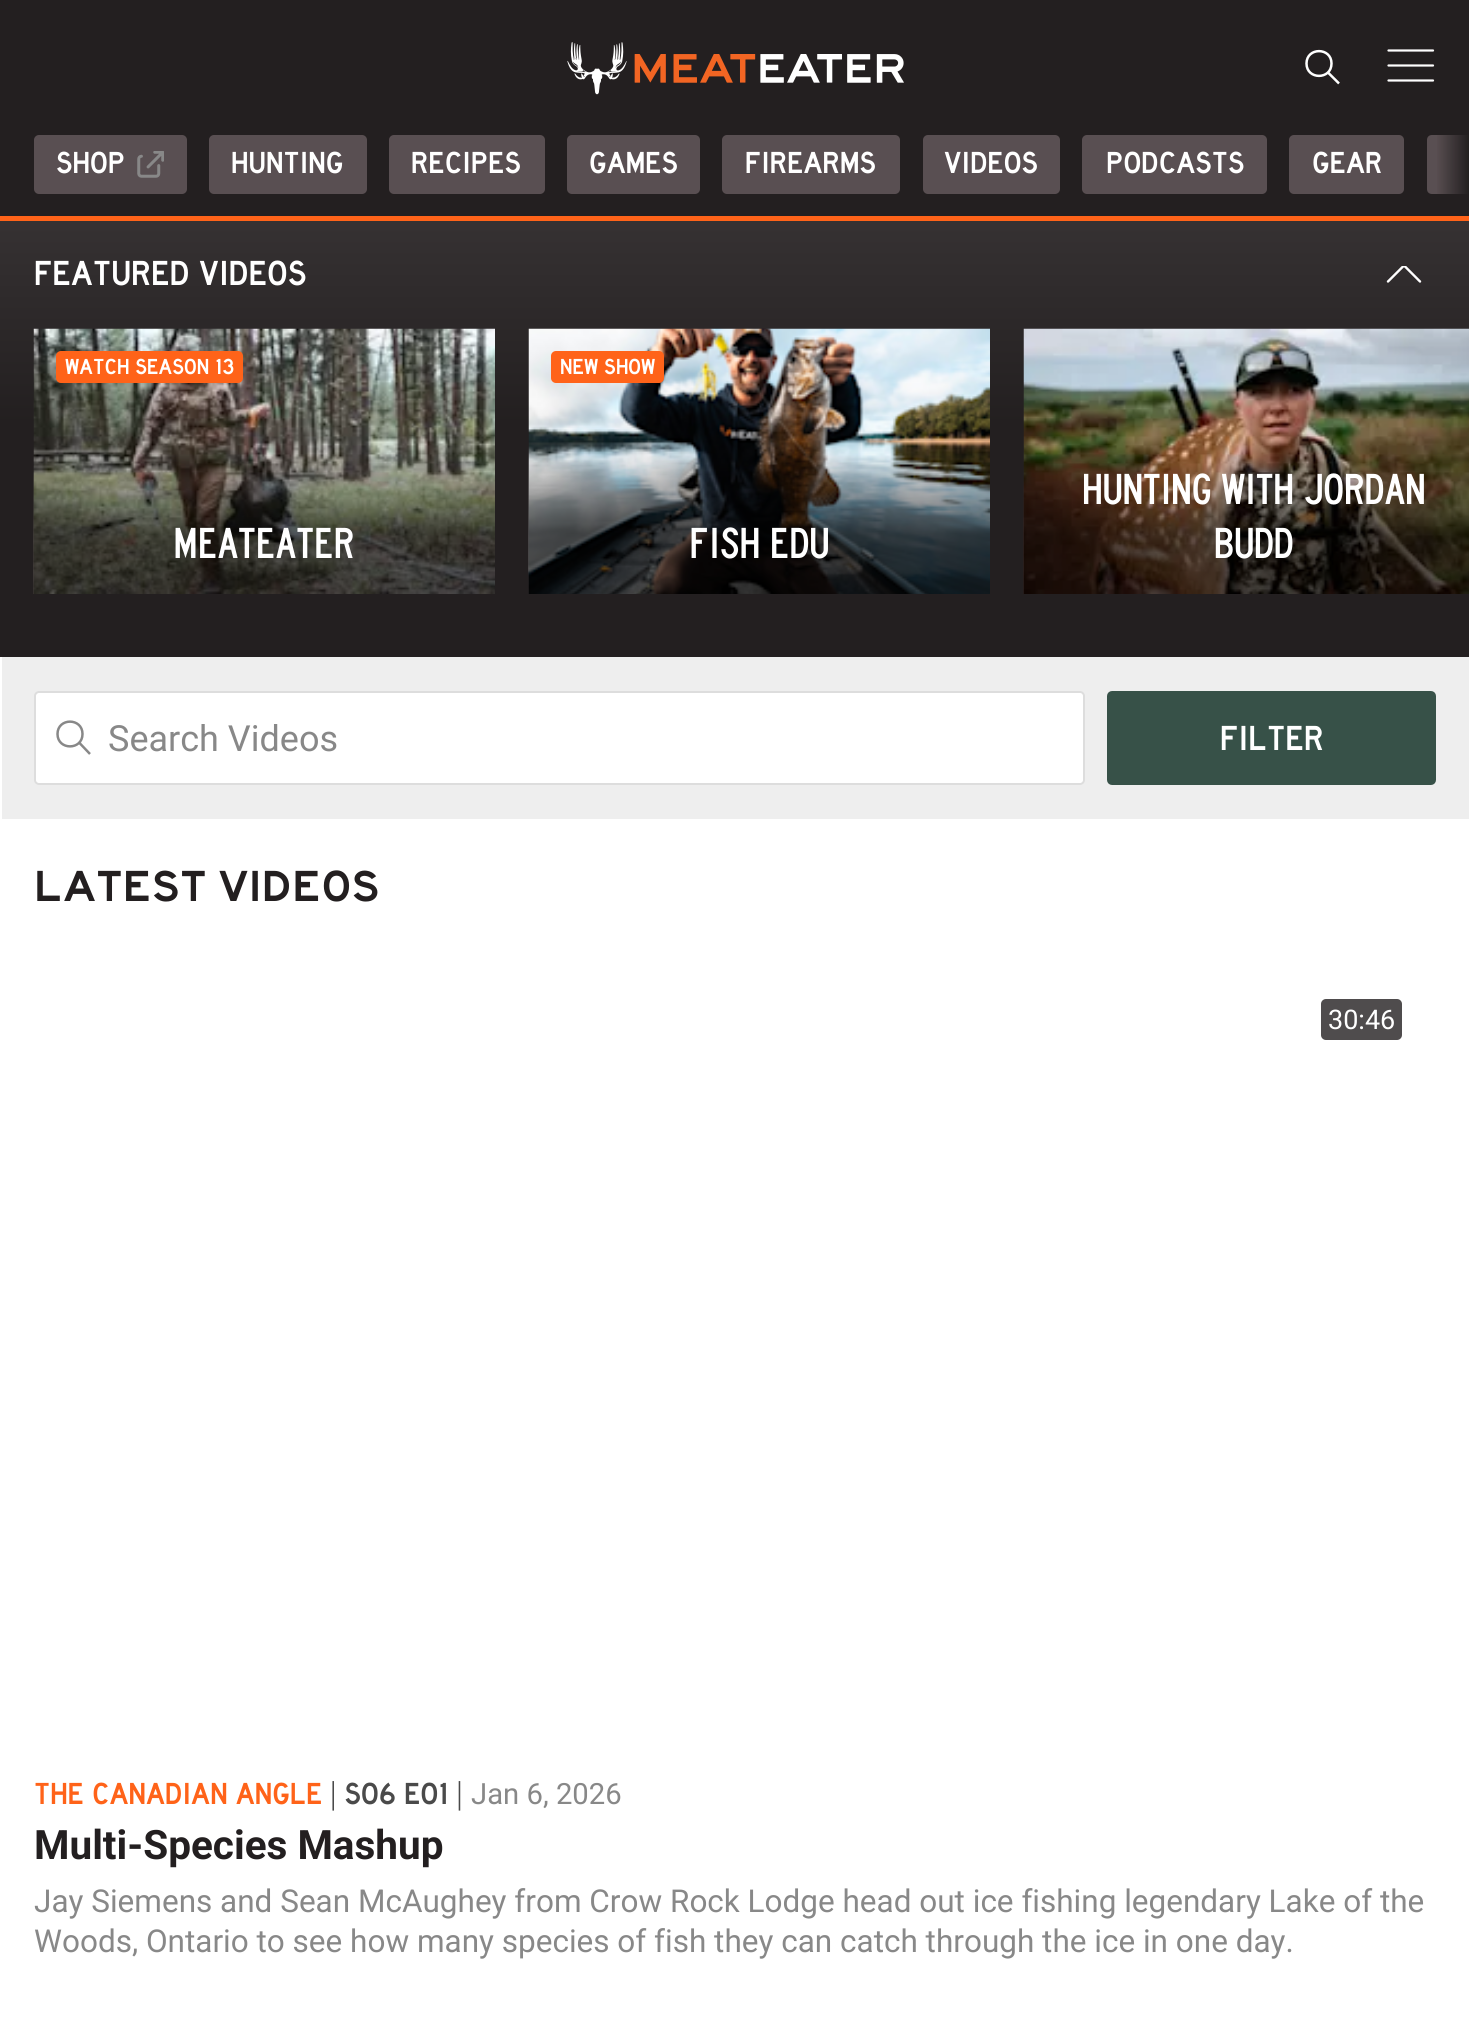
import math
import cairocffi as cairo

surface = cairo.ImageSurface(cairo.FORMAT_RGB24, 1469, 2027)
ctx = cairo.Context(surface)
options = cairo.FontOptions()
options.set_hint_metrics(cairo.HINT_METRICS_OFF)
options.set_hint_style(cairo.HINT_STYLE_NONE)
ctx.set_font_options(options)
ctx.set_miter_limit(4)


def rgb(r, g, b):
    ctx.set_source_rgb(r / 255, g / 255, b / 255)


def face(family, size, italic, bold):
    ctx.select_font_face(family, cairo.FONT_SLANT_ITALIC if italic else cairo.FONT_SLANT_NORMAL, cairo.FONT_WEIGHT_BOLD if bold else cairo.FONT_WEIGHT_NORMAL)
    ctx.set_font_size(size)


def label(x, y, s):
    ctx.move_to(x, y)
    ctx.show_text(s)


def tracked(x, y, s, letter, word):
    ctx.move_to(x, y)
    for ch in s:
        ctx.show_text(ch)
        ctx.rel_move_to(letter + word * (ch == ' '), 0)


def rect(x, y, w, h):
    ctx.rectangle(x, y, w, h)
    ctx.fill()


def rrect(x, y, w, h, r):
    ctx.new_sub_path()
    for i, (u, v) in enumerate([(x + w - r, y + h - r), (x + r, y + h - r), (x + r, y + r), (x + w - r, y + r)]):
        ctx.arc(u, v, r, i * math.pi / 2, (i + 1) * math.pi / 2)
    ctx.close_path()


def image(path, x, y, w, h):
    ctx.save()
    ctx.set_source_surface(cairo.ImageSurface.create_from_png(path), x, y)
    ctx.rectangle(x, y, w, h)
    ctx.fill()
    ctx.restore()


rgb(255, 255, 255)
ctx.paint()
rgb(35, 31, 32)
rect(0, 0, 1469, 216)
image('image0.png', 567, 42, 337, 53)
ctx.new_path()
ctx.move_to(1331.5, 63.5)
ctx.curve_to(1331.5, 80, 1306.5, 80, 1306.5, 63.5)
ctx.curve_to(1306.5, 47, 1331.5, 47, 1331.5, 63.5)
ctx.close_path()
ctx.move_to(1328.5, 73)
ctx.line_to(1339, 83.5)
rgb(255, 255, 255)
ctx.set_line_width(2.5)
ctx.stroke()
ctx.new_path()
ctx.move_to(1388.5, 50.5)
ctx.line_to(1433, 50.5)
ctx.move_to(1388.5, 65.5)
ctx.line_to(1433, 65.5)
ctx.move_to(1388.5, 80.5)
ctx.line_to(1433, 80.5)
ctx.set_line_width(2.2)
ctx.set_line_cap(cairo.LINE_CAP_ROUND)
ctx.stroke()
rgb(255, 99, 25)
rect(0, 216, 1469, 5)
rgb(89, 79, 82)
rrect(34, 135, 153, 59, 5)
ctx.fill()
face('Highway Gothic', 31.5, 0, 0)
rgb(255, 255, 255)
label(56, 173, 'SHOP')
image('image1.png', 137, 151, 27, 27)
rgb(89, 79, 82)
rrect(209, 135, 158, 59, 5)
ctx.fill()
rgb(255, 255, 255)
label(231, 173, 'HUNTING')
rgb(89, 79, 82)
rrect(389, 135, 156, 59, 5)
ctx.fill()
rgb(255, 255, 255)
label(411, 173, 'RECIPES')
rgb(89, 79, 82)
rrect(567, 135, 133, 59, 5)
ctx.fill()
rgb(255, 255, 255)
label(589, 173, 'GAMES')
rgb(89, 79, 82)
rrect(722, 135, 178, 59, 5)
ctx.fill()
rgb(255, 255, 255)
label(745, 173, 'FIREARMS')
rgb(89, 79, 82)
rrect(923, 135, 137, 59, 5)
ctx.fill()
rgb(255, 255, 255)
label(944, 173, 'VIDEOS')
rgb(89, 79, 82)
rrect(1082, 135, 185, 59, 5)
ctx.fill()
rgb(255, 255, 255)
label(1106, 173, 'PODCASTS')
rgb(89, 79, 82)
rrect(1289, 135, 115, 59, 5)
ctx.fill()
rgb(255, 255, 255)
label(1312, 173, 'GEAR')
rgb(89, 79, 82)
ctx.new_path()
ctx.move_to(1432, 135)
ctx.line_to(1469, 135)
ctx.line_to(1469, 194)
ctx.line_to(1432, 194)
ctx.curve_to(1429, 194, 1427, 192, 1427, 189)
ctx.line_to(1427, 140)
ctx.curve_to(1427, 137, 1429, 135, 1432, 135)
ctx.close_path()
ctx.fill()
gradient = cairo.LinearGradient(1469, 173, 1436, 173)
gradient.add_color_stop_rgba(0, 0.137, 0.122, 0.125, 1)
gradient.add_color_stop_rgba(1, 0.137, 0.122, 0.125, 0)
ctx.set_source(gradient)
rect(1437, 135, 32, 59)
rgb(35, 31, 32)
rect(0, 423, 1469, 234)
gradient = cairo.LinearGradient(735, 220, 735, 423)
gradient.add_color_stop_rgba(0.03, 0.208, 0.192, 0.196, 1)
gradient.add_color_stop_rgba(1, 0.137, 0.122, 0.125, 1)
ctx.set_source(gradient)
rect(0, 221, 1469, 202)
face('Highway Gothic', 36, 0, 0)
rgb(255, 255, 255)
label(34, 285, 'FEATURED VIDEOS')
ctx.save()
ctx.rectangle(1386, 266, 36, 18)
ctx.clip()
ctx.new_path()
ctx.move_to(1420, 281.5)
ctx.line_to(1404, 265.5)
ctx.line_to(1388, 281.5)
ctx.set_line_width(2.4)
ctx.set_line_join(cairo.LINE_JOIN_ROUND)
ctx.stroke()
ctx.restore()
image('image2.png', 33, 328, 462, 266)
rgb(255, 99, 25)
rrect(56, 351, 187, 32, 5)
ctx.fill()
face('Highway Gothic', 22.5, 0, 0)
rgb(255, 255, 255)
label(65, 374, 'WATCH SEASON 13')
face('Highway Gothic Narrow', 45, 0, 0)
tracked(173, 558, 'MEATEATER', -0.5, 0)
image('image3.png', 528, 328, 462, 266)
rgb(255, 99, 25)
rrect(551, 351, 113, 32, 5)
ctx.fill()
face('Highway Gothic', 22.5, 0, 0)
rgb(255, 255, 255)
label(560, 374, 'NEW SHOW')
face('Highway Gothic Narrow', 45, 0, 0)
tracked(689, 558, 'FISH EDU', -0.5, 0)
image('image4.png', 1023, 328, 446, 266)
tracked(1082, 504, 'HUNTING WITH JORDAN', -0.5, 0)
tracked(1214, 558, 'BUDD', -0.5, 0)
rgb(238, 238, 238)
rect(2, 657, 1467, 162)
rgb(255, 255, 255)
rrect(35, 692, 1049, 92, 4)
ctx.fill_preserve()
rgb(221, 221, 221)
ctx.set_line_width(2)
ctx.set_line_cap(cairo.LINE_CAP_BUTT)
ctx.stroke()
ctx.new_path()
ctx.move_to(82.5, 734)
ctx.curve_to(82.5, 750.5, 57.5, 750.5, 57.5, 734)
ctx.curve_to(57.5, 717.5, 82.5, 717.5, 82.5, 734)
ctx.close_path()
ctx.move_to(80, 743.5)
ctx.line_to(90, 754)
rgb(136, 136, 136)
ctx.set_line_width(2.5)
ctx.stroke()
face('Roboto', 36, 0, 0)
label(108, 751, 'Search Videos')
rgb(55, 81, 72)
rrect(1109.5, 693.5, 324, 89, 2.5)
ctx.fill_preserve()
ctx.set_line_width(5)
ctx.stroke()
face('Highway Gothic', 36, 0, 0)
rgb(255, 255, 255)
label(1220, 750, 'FILTER')
face('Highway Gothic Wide', 45, 0, 0)
rgb(35, 31, 32)
label(34, 901, 'LATEST VIDEOS')
rgb(79, 76, 77)
rrect(1321, 999, 81, 41, 5)
ctx.fill()
face('Roboto', 27, 0, 0)
rgb(255, 255, 255)
label(1328, 1029, '30:46')
face('Highway Gothic', 31.5, 0, 0)
rgb(255, 99, 25)
label(34, 1804, 'THE CANADIAN ANGLE')
rgb(74, 74, 74)
label(330, 1804, '| S06 E01 |')
face('Roboto', 29.25, 0, 0)
rgb(136, 136, 136)
label(471, 1804, 'Jan 6, 2026')
face('Roboto', 40.5, 0, 1)
rgb(35, 31, 32)
label(34, 1859, 'Multi-Species Mashup')
face('Roboto', 31.5, 0, 0)
rgb(136, 136, 136)
label(34, 1912, 'Jay Siemens and Sean McAughey from Crow Rock Lodge head out ice fishing legendary Lake of the')
label(34, 1952, 'Woods, Ontario to see how many species of fish they can catch through the ice in one day.')
surface.write_to_png('render.png')
